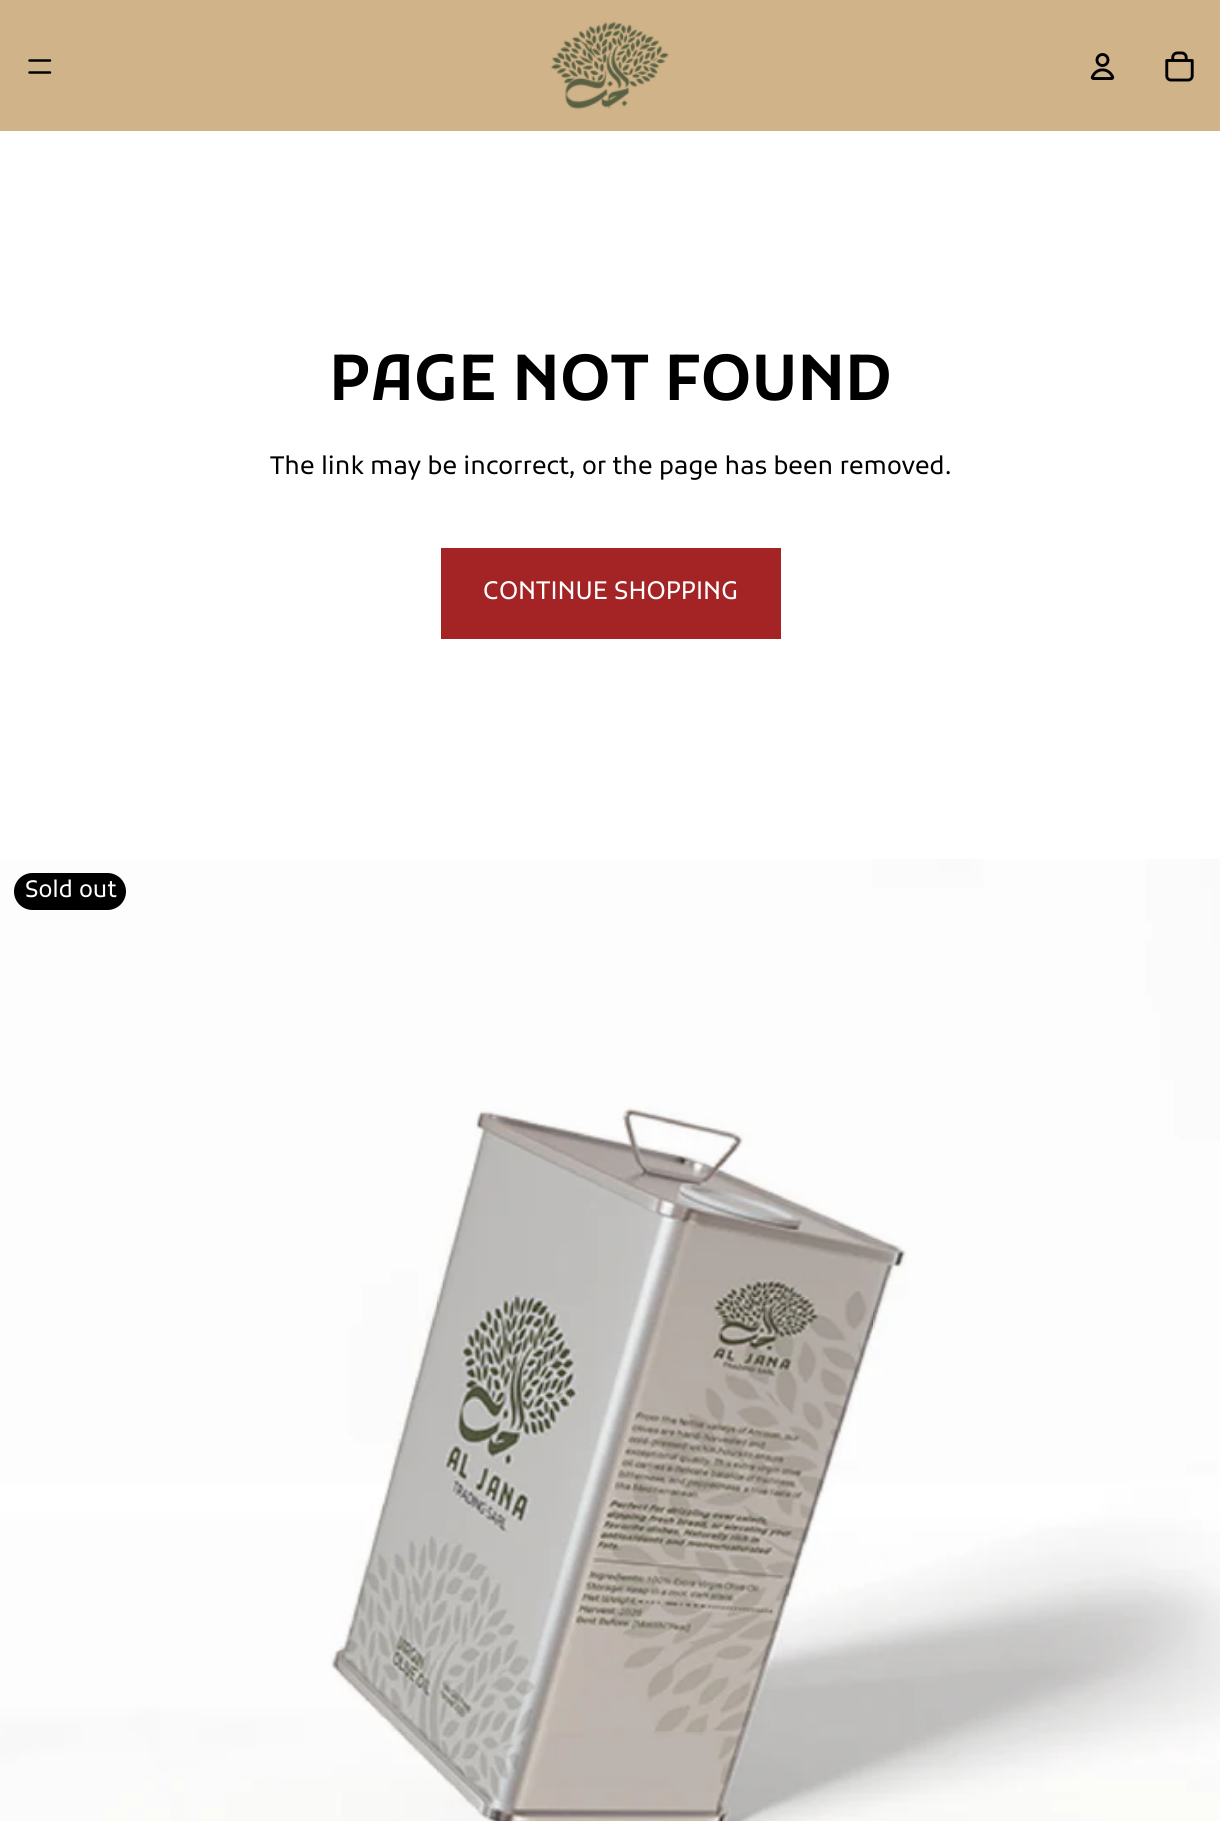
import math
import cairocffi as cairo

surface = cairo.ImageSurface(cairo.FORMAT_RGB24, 1220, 1821)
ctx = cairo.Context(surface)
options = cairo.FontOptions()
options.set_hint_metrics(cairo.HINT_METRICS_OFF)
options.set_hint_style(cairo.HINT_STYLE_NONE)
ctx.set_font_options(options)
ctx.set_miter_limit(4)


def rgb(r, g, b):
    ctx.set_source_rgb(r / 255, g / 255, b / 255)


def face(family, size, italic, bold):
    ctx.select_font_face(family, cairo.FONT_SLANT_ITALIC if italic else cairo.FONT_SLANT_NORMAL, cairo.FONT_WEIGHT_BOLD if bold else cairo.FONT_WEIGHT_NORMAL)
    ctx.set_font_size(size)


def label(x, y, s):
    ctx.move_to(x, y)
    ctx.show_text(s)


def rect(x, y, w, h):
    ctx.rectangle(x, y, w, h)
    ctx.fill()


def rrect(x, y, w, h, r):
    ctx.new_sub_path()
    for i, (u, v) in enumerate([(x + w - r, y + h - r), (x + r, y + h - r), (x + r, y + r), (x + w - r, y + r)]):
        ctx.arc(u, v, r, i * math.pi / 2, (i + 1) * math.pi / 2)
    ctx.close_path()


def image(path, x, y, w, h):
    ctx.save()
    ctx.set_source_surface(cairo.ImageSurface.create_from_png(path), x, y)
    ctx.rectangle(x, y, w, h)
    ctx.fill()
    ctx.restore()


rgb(255, 255, 255)
ctx.paint()
rgb(208, 179, 137)
rect(0, 0, 1220, 131)
ctx.new_path()
ctx.move_to(29.5, 60.5)
ctx.line_to(50, 60.5)
ctx.move_to(29.5, 72.5)
ctx.line_to(50, 72.5)
rgb(0, 0, 0)
ctx.set_line_width(2.5)
ctx.set_line_cap(cairo.LINE_CAP_ROUND)
ctx.stroke()
image('image0.png', 550, 22, 119, 88)
image('image1.png', 1090, 53, 25, 27)
image('image2.png', 1165, 51, 29, 31)
face('Kufam SemiBold', 63, 0, 0)
label(329, 400, 'PAGE NOT FOUND')
face('Kufam', 24.5, 0, 0)
label(270, 474, 'The link may be incorrect, or the page has been removed.')
rgb(164, 35, 37)
rect(441, 548, 340, 91)
rgb(255, 255, 255)
label(483, 599, 'CONTINUE SHOPPING')
image('image3.png', 0, 859, 1220, 962)
rgb(0, 0, 0)
rrect(14, 873, 112, 37, 18.5)
ctx.fill()
face('Kufam', 23, 0, 0)
rgb(255, 255, 255)
label(25, 897, 'Sold out')
surface.write_to_png('render.png')
